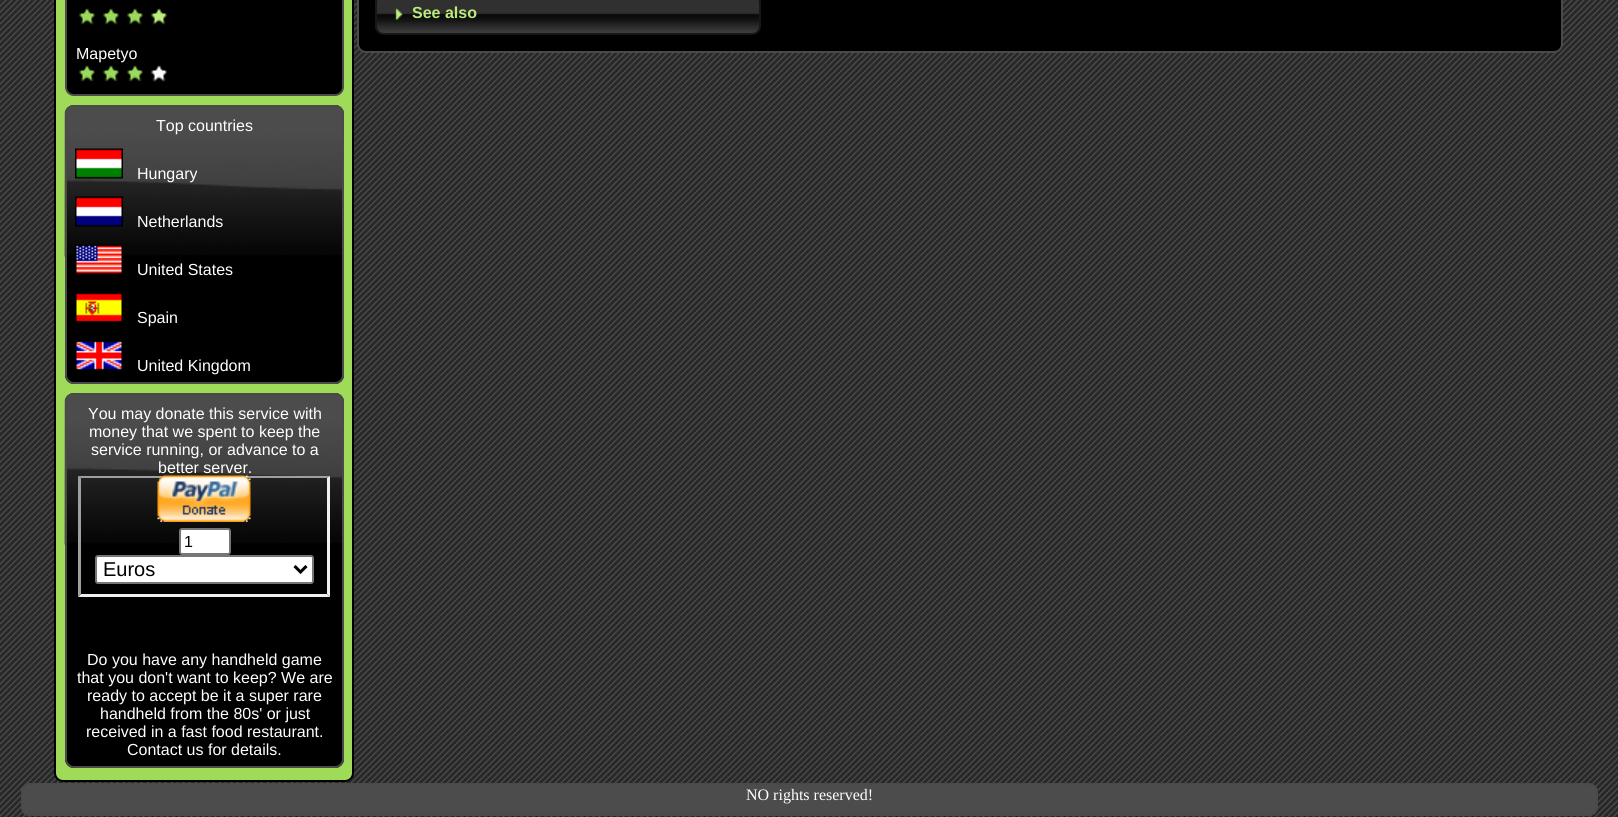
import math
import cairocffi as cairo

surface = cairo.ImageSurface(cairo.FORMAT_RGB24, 1618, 817)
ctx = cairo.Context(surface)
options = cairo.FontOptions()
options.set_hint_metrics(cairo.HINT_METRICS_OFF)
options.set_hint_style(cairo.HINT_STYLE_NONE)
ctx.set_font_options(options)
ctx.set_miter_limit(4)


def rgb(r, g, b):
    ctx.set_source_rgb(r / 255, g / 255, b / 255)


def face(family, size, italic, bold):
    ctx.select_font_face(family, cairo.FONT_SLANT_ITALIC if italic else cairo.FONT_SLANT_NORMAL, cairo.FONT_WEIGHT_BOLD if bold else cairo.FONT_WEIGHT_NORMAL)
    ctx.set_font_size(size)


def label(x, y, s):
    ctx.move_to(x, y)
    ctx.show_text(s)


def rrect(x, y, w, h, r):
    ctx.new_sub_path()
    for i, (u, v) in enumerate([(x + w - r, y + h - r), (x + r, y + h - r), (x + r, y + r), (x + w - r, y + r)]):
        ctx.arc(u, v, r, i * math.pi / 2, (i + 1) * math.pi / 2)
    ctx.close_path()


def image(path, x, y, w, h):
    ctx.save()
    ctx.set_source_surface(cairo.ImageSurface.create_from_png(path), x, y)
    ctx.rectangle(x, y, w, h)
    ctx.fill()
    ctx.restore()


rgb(255, 255, 255)
ctx.paint()
image('image0.png', 0, 0, 1618, 817)
rgb(0, 0, 0)
rrect(358, -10, 1204, 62, 8)
ctx.fill_preserve()
rgb(74, 74, 74)
ctx.stroke()
image('image1.png', 375, 0, 386, 35)
rrect(376, -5, 384, 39, 8)
rgb(27, 22, 19)
ctx.stroke()
image('image2.png', 395, 8, 8, 12)
face('Liberation Sans', 16, 0, 1)
rgb(184, 236, 121)
label(412, 18, 'See also')
rgb(159, 218, 88)
rrect(55, -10, 298, 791, 8)
ctx.fill_preserve()
rgb(0, 0, 0)
ctx.stroke()
rrect(66, -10, 277, 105, 8)
ctx.fill_preserve()
rgb(74, 74, 74)
ctx.stroke()
image('image3.png', 79, 8, 16, 17)
image('image3.png', 103, 8, 16, 17)
image('image3.png', 127, 8, 16, 17)
image('image4.png', 151, 8, 16, 17)
face('Liberation Sans', 16, 0, 0)
rgb(255, 255, 255)
label(76, 59, 'Mapetyo')
image('image3.png', 79, 65, 16, 17)
image('image3.png', 103, 65, 16, 17)
image('image3.png', 127, 65, 16, 17)
image('image5.png', 151, 65, 16, 17)
rgb(0, 0, 0)
rrect(65, 105, 279, 279, 9)
ctx.fill()
image('image6.png', 64, 106, 280, 151)
rrect(66, 106, 277, 277, 8)
rgb(74, 74, 74)
ctx.stroke()
rgb(255, 255, 255)
label(156, 131, 'Top countries')
image('image7.png', 75, 148, 48, 31)
label(137, 179, 'Hungary')
image('image8.png', 75, 196, 48, 31)
label(137, 227, 'Netherlands')
image('image9.png', 75, 244, 48, 30)
label(137, 275, 'United States')
image('image10.png', 76, 293, 46, 29)
label(137, 323, 'Spain')
image('image11.png', 76, 341, 46, 29)
label(137, 371, 'United Kingdom')
rgb(0, 0, 0)
rrect(65, 393, 279, 375, 9)
ctx.fill()
image('image6.png', 64, 394, 280, 151)
rrect(66, 394, 277, 373, 8)
rgb(74, 74, 74)
ctx.stroke()
rgb(255, 255, 255)
label(88, 419, 'You may donate this service with')
label(89, 437, 'money that we spent to keep the')
label(91, 455, 'service running, or advance to a')
label(158, 473, 'better server.')
rgb(159, 159, 159)
ctx.new_path()
ctx.move_to(78, 476)
ctx.line_to(330, 476)
ctx.line_to(327, 478)
ctx.line_to(81, 478)
ctx.close_path()
ctx.fill()
rgb(239, 239, 239)
ctx.new_path()
ctx.move_to(330, 476)
ctx.line_to(330, 597)
ctx.line_to(327, 594)
ctx.line_to(327, 478)
ctx.close_path()
ctx.fill()
ctx.new_path()
ctx.move_to(330, 597)
ctx.line_to(78, 597)
ctx.line_to(81, 594)
ctx.line_to(327, 594)
ctx.close_path()
ctx.fill()
rgb(159, 159, 159)
ctx.new_path()
ctx.move_to(78, 597)
ctx.line_to(78, 476)
ctx.line_to(81, 478)
ctx.line_to(81, 594)
ctx.close_path()
ctx.fill()
image('image12.png', 157, 475, 94, 47)
rgb(255, 255, 255)
rrect(180, 529, 50, 25, 2)
ctx.fill_preserve()
rgb(118, 118, 118)
ctx.stroke()
rgb(0, 0, 0)
label(184, 547, '1')
rgb(255, 255, 255)
rrect(96, 556, 217, 27, 2)
ctx.fill_preserve()
rgb(118, 118, 118)
ctx.stroke()
ctx.new_path()
ctx.move_to(294.5, 566)
ctx.line_to(300.5, 572)
ctx.line_to(306.5, 566)
rgb(0, 0, 0)
ctx.set_line_width(3)
ctx.stroke()
face('Liberation Sans', 20, 0, 0)
label(103, 576, 'Euros')
face('Liberation Sans', 16, 0, 0)
rgb(255, 255, 255)
label(87, 665, 'Do you have any handheld game')
label(77, 683, 'that you don\'t want to keep? We are')
label(87, 701, 'ready to accept be it a super rare')
label(100, 719, 'handheld from the 80s\' or just')
label(86, 737, 'received in a fast food restaurant.')
label(127, 755, 'Contact us for details.')
image('image13.png', 21, 784, 1577, 32)
rrect(22, 784, 1575, 31, 8)
rgb(74, 74, 74)
ctx.set_line_width(2)
ctx.stroke()
face('Liberation Serif', 16, 0, 0)
rgb(255, 255, 255)
label(746, 800, 'NO rights reserved!')
surface.write_to_png('render.png')
